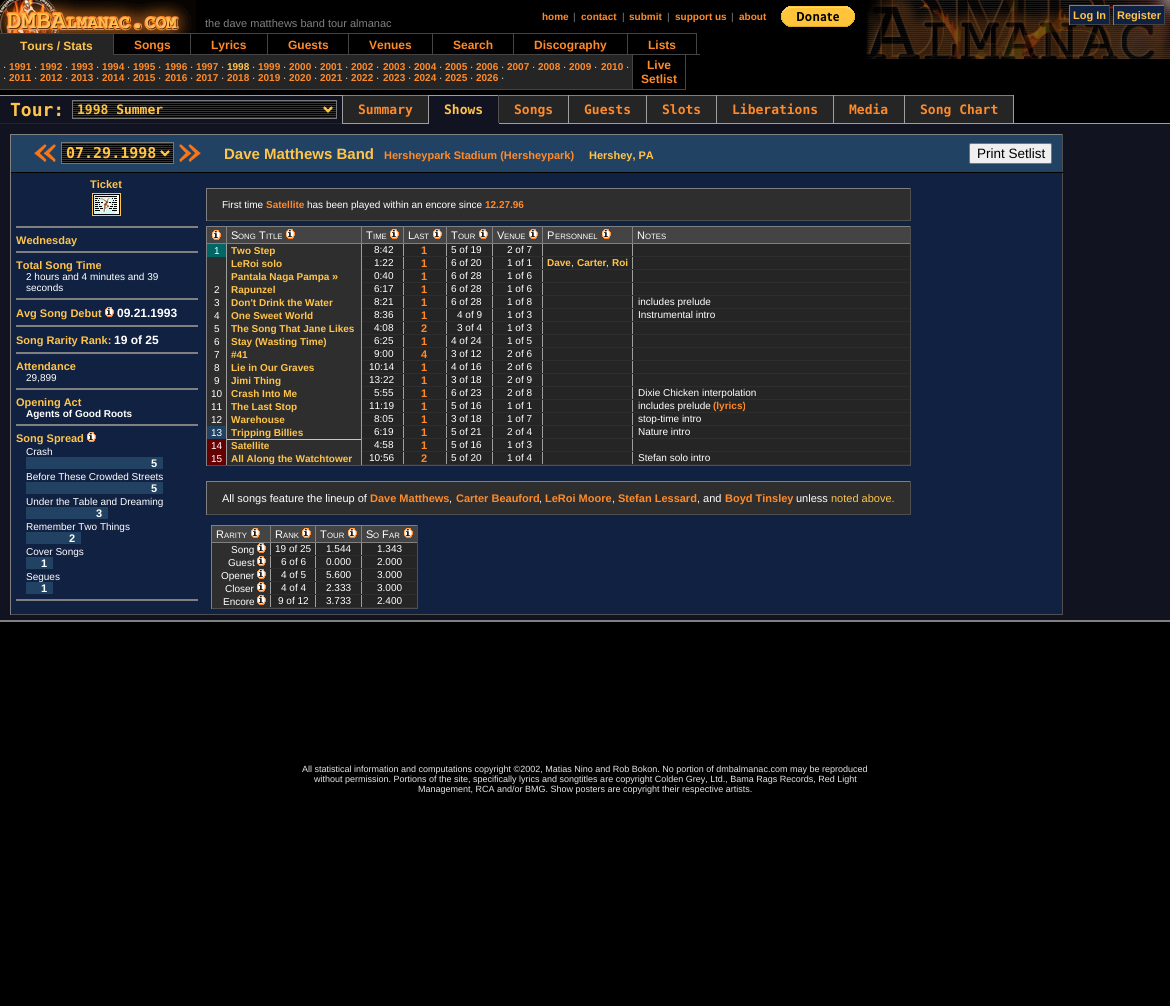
import math
import cairocffi as cairo

surface = cairo.ImageSurface(cairo.FORMAT_RGB24, 1170, 1006)
ctx = cairo.Context(surface)
options = cairo.FontOptions()
options.set_hint_metrics(cairo.HINT_METRICS_OFF)
options.set_hint_style(cairo.HINT_STYLE_NONE)
ctx.set_font_options(options)
ctx.set_miter_limit(4)


def rgb(r, g, b):
    ctx.set_source_rgb(r / 255, g / 255, b / 255)


def face(family, size, italic, bold):
    ctx.select_font_face(family, cairo.FONT_SLANT_ITALIC if italic else cairo.FONT_SLANT_NORMAL, cairo.FONT_WEIGHT_BOLD if bold else cairo.FONT_WEIGHT_NORMAL)
    ctx.set_font_size(size)


def label(x, y, s):
    ctx.move_to(x, y)
    ctx.show_text(s)


def rect(x, y, w, h):
    ctx.rectangle(x, y, w, h)
    ctx.fill()


def rrect(x, y, w, h, r):
    ctx.new_sub_path()
    for i, (u, v) in enumerate([(x + w - r, y + h - r), (x + r, y + h - r), (x + r, y + r), (x + w - r, y + r)]):
        ctx.arc(u, v, r, i * math.pi / 2, (i + 1) * math.pi / 2)
    ctx.close_path()


def image(path, x, y, w, h):
    ctx.save()
    ctx.set_source_surface(cairo.ImageSurface.create_from_png(path), x, y)
    ctx.rectangle(x, y, w, h)
    ctx.fill()
    ctx.restore()


rgb(0, 0, 0)
ctx.paint()
image('image0.png', 0, 0, 196, 33)
face('Liberation Sans', 11, 0, 0)
rgb(128, 128, 128)
label(205, 27, 'the dave matthews band tour almanac')
face('Liberation Sans', 10, 0, 1)
rgb(255, 138, 41)
label(542, 20, 'home')
face('Liberation Sans', 10, 0, 0)
rgb(128, 128, 128)
label(573, 20, '|')
face('Liberation Sans', 10, 0, 1)
rgb(255, 138, 41)
label(581, 20, 'contact')
face('Liberation Sans', 10, 0, 0)
rgb(128, 128, 128)
label(622, 20, '|')
face('Liberation Sans', 10, 0, 1)
rgb(255, 138, 41)
label(629, 20, 'submit')
face('Liberation Sans', 10, 0, 0)
rgb(128, 128, 128)
label(667, 20, '|')
face('Liberation Sans', 10, 0, 1)
rgb(255, 138, 41)
label(675, 20, 'support us')
face('Liberation Sans', 10, 0, 0)
rgb(128, 128, 128)
label(731, 20, '|')
face('Liberation Sans', 10, 0, 1)
rgb(255, 138, 41)
label(739, 20, 'about')
image('image1.png', 781, 6, 74, 21)
image('image2.png', 865, 0, 305, 59)
rgb(16, 33, 66)
rect(1070, 6, 39, 18)
rgb(128, 128, 128)
rect(1069, 5, 41, 1)
rgb(68, 68, 68)
rect(1109, 5, 1, 20)
rect(1069, 24, 41, 1)
rgb(128, 128, 128)
rect(1069, 5, 1, 20)
face('Liberation Sans', 11, 0, 1)
rgb(255, 196, 73)
label(1073, 19, 'Log In')
rgb(16, 33, 66)
rect(1114, 6, 50, 18)
rgb(128, 128, 128)
rect(1113, 5, 52, 1)
rgb(68, 68, 68)
rect(1164, 5, 1, 20)
rect(1113, 24, 52, 1)
rgb(128, 128, 128)
rect(1113, 5, 1, 20)
rgb(255, 196, 73)
label(1117, 19, 'Register')
rgb(37, 37, 37)
rect(0, 34, 113, 21)
rgb(68, 68, 68)
rect(0, 33, 696, 1)
face('Liberation Sans', 12, 0, 1)
rgb(255, 196, 73)
label(20, 50, 'Tours / Stats')
rgb(68, 68, 68)
rect(113, 54, 587, 1)
rect(113, 33, 1, 22)
rgb(255, 138, 41)
label(134, 49, 'Songs')
rgb(68, 68, 68)
rect(190, 33, 1, 22)
rgb(255, 138, 41)
label(211, 49, 'Lyrics')
rgb(68, 68, 68)
rect(267, 33, 1, 22)
rgb(255, 138, 41)
label(288, 49, 'Guests')
rgb(68, 68, 68)
rect(348, 33, 1, 22)
rgb(255, 138, 41)
label(369, 49, 'Venues')
rgb(68, 68, 68)
rect(432, 33, 1, 22)
rgb(255, 138, 41)
label(453, 49, 'Search')
rgb(68, 68, 68)
rect(513, 33, 1, 22)
rgb(255, 138, 41)
label(534, 49, 'Discography')
rgb(68, 68, 68)
rect(627, 33, 1, 22)
rgb(255, 138, 41)
label(648, 49, 'Lists')
rgb(68, 68, 68)
rect(696, 33, 1, 22)
rgb(37, 37, 37)
rect(0, 55, 632, 34)
rgb(68, 68, 68)
rect(632, 55, 1, 35)
rect(0, 89, 633, 1)
face('Liberation Sans', 10, 0, 0)
rgb(255, 255, 255)
label(3, 70, '·')
face('Liberation Sans', 10, 0, 1)
rgb(255, 138, 41)
label(9, 70, '1991')
face('Liberation Sans', 10, 0, 0)
rgb(255, 255, 255)
label(34, 70, '·')
face('Liberation Sans', 10, 0, 1)
rgb(255, 138, 41)
label(40, 70, '1992')
face('Liberation Sans', 10, 0, 0)
rgb(255, 255, 255)
label(65, 70, '·')
face('Liberation Sans', 10, 0, 1)
rgb(255, 138, 41)
label(71, 70, '1993')
face('Liberation Sans', 10, 0, 0)
rgb(255, 255, 255)
label(96, 70, '·')
face('Liberation Sans', 10, 0, 1)
rgb(255, 138, 41)
label(102, 70, '1994')
face('Liberation Sans', 10, 0, 0)
rgb(255, 255, 255)
label(127, 70, '·')
face('Liberation Sans', 10, 0, 1)
rgb(255, 138, 41)
label(133, 70, '1995')
face('Liberation Sans', 10, 0, 0)
rgb(255, 255, 255)
label(158, 70, '·')
face('Liberation Sans', 10, 0, 1)
rgb(255, 138, 41)
label(165, 70, '1996')
face('Liberation Sans', 10, 0, 0)
rgb(255, 255, 255)
label(190, 70, '·')
face('Liberation Sans', 10, 0, 1)
rgb(255, 138, 41)
label(196, 70, '1997')
face('Liberation Sans', 10, 0, 0)
rgb(255, 255, 255)
label(221, 70, '·')
face('Liberation Sans', 10, 0, 1)
rgb(255, 196, 73)
label(227, 70, '1998')
face('Liberation Sans', 10, 0, 0)
rgb(255, 255, 255)
label(252, 70, '·')
face('Liberation Sans', 10, 0, 1)
rgb(255, 138, 41)
label(258, 70, '1999')
face('Liberation Sans', 10, 0, 0)
rgb(255, 255, 255)
label(283, 70, '·')
face('Liberation Sans', 10, 0, 1)
rgb(255, 138, 41)
label(289, 70, '2000')
face('Liberation Sans', 10, 0, 0)
rgb(255, 255, 255)
label(314, 70, '·')
face('Liberation Sans', 10, 0, 1)
rgb(255, 138, 41)
label(320, 70, '2001')
face('Liberation Sans', 10, 0, 0)
rgb(255, 255, 255)
label(345, 70, '·')
face('Liberation Sans', 10, 0, 1)
rgb(255, 138, 41)
label(351, 70, '2002')
face('Liberation Sans', 10, 0, 0)
rgb(255, 255, 255)
label(376, 70, '·')
face('Liberation Sans', 10, 0, 1)
rgb(255, 138, 41)
label(383, 70, '2003')
face('Liberation Sans', 10, 0, 0)
rgb(255, 255, 255)
label(408, 70, '·')
face('Liberation Sans', 10, 0, 1)
rgb(255, 138, 41)
label(414, 70, '2004')
face('Liberation Sans', 10, 0, 0)
rgb(255, 255, 255)
label(439, 70, '·')
face('Liberation Sans', 10, 0, 1)
rgb(255, 138, 41)
label(445, 70, '2005')
face('Liberation Sans', 10, 0, 0)
rgb(255, 255, 255)
label(470, 70, '·')
face('Liberation Sans', 10, 0, 1)
rgb(255, 138, 41)
label(476, 70, '2006')
face('Liberation Sans', 10, 0, 0)
rgb(255, 255, 255)
label(501, 70, '·')
face('Liberation Sans', 10, 0, 1)
rgb(255, 138, 41)
label(507, 70, '2007')
face('Liberation Sans', 10, 0, 0)
rgb(255, 255, 255)
label(532, 70, '·')
face('Liberation Sans', 10, 0, 1)
rgb(255, 138, 41)
label(538, 70, '2008')
face('Liberation Sans', 10, 0, 0)
rgb(255, 255, 255)
label(563, 70, '·')
face('Liberation Sans', 10, 0, 1)
rgb(255, 138, 41)
label(569, 70, '2009')
face('Liberation Sans', 10, 0, 0)
rgb(255, 255, 255)
label(594, 70, '·')
face('Liberation Sans', 10, 0, 1)
rgb(255, 138, 41)
label(601, 70, '2010')
face('Liberation Sans', 10, 0, 0)
rgb(255, 255, 255)
label(626, 70, '·')
label(3, 81, '·')
face('Liberation Sans', 10, 0, 1)
rgb(255, 138, 41)
label(9, 81, '2011')
face('Liberation Sans', 10, 0, 0)
rgb(255, 255, 255)
label(34, 81, '·')
face('Liberation Sans', 10, 0, 1)
rgb(255, 138, 41)
label(40, 81, '2012')
face('Liberation Sans', 10, 0, 0)
rgb(255, 255, 255)
label(65, 81, '·')
face('Liberation Sans', 10, 0, 1)
rgb(255, 138, 41)
label(71, 81, '2013')
face('Liberation Sans', 10, 0, 0)
rgb(255, 255, 255)
label(96, 81, '·')
face('Liberation Sans', 10, 0, 1)
rgb(255, 138, 41)
label(102, 81, '2014')
face('Liberation Sans', 10, 0, 0)
rgb(255, 255, 255)
label(127, 81, '·')
face('Liberation Sans', 10, 0, 1)
rgb(255, 138, 41)
label(133, 81, '2015')
face('Liberation Sans', 10, 0, 0)
rgb(255, 255, 255)
label(158, 81, '·')
face('Liberation Sans', 10, 0, 1)
rgb(255, 138, 41)
label(165, 81, '2016')
face('Liberation Sans', 10, 0, 0)
rgb(255, 255, 255)
label(190, 81, '·')
face('Liberation Sans', 10, 0, 1)
rgb(255, 138, 41)
label(196, 81, '2017')
face('Liberation Sans', 10, 0, 0)
rgb(255, 255, 255)
label(221, 81, '·')
face('Liberation Sans', 10, 0, 1)
rgb(255, 138, 41)
label(227, 81, '2018')
face('Liberation Sans', 10, 0, 0)
rgb(255, 255, 255)
label(252, 81, '·')
face('Liberation Sans', 10, 0, 1)
rgb(255, 138, 41)
label(258, 81, '2019')
face('Liberation Sans', 10, 0, 0)
rgb(255, 255, 255)
label(283, 81, '·')
face('Liberation Sans', 10, 0, 1)
rgb(255, 138, 41)
label(289, 81, '2020')
face('Liberation Sans', 10, 0, 0)
rgb(255, 255, 255)
label(314, 81, '·')
face('Liberation Sans', 10, 0, 1)
rgb(255, 138, 41)
label(320, 81, '2021')
face('Liberation Sans', 10, 0, 0)
rgb(255, 255, 255)
label(345, 81, '·')
face('Liberation Sans', 10, 0, 1)
rgb(255, 138, 41)
label(351, 81, '2022')
face('Liberation Sans', 10, 0, 0)
rgb(255, 255, 255)
label(376, 81, '·')
face('Liberation Sans', 10, 0, 1)
rgb(255, 138, 41)
label(383, 81, '2023')
face('Liberation Sans', 10, 0, 0)
rgb(255, 255, 255)
label(408, 81, '·')
face('Liberation Sans', 10, 0, 1)
rgb(255, 138, 41)
label(414, 81, '2024')
face('Liberation Sans', 10, 0, 0)
rgb(255, 255, 255)
label(439, 81, '·')
face('Liberation Sans', 10, 0, 1)
rgb(255, 138, 41)
label(445, 81, '2025')
face('Liberation Sans', 10, 0, 0)
rgb(255, 255, 255)
label(470, 81, '·')
face('Liberation Sans', 10, 0, 1)
rgb(255, 138, 41)
label(476, 81, '2026')
face('Liberation Sans', 10, 0, 0)
rgb(255, 255, 255)
label(501, 81, '·')
rgb(68, 68, 68)
rect(685, 55, 1, 35)
rect(633, 89, 53, 1)
face('Liberation Sans', 12, 0, 1)
rgb(255, 138, 41)
label(647, 69, 'Live')
label(641, 83, 'Setlist')
rgb(37, 37, 37)
rect(0, 96, 1013, 28)
rgb(18, 19, 33)
rect(0, 96, 342, 27)
face('DejaVu Sans Mono', 18, 0, 1)
rgb(255, 196, 73)
label(10, 116, 'Tour:')
rgb(128, 128, 128)
rect(498, 95, 516, 1)
rgb(158, 158, 158)
rect(428, 95, 71, 1)
rgb(128, 128, 128)
rect(342, 95, 87, 1)
rgb(158, 158, 158)
rect(0, 95, 343, 1)
rect(1013, 123, 157, 1)
rect(1013, 95, 1, 29)
rect(904, 123, 110, 1)
rect(904, 95, 1, 29)
rect(833, 123, 72, 1)
rect(833, 95, 1, 29)
rect(716, 123, 118, 1)
rect(716, 95, 1, 29)
rect(646, 123, 71, 1)
rect(646, 95, 1, 29)
rect(568, 123, 79, 1)
rect(568, 95, 1, 29)
rect(498, 123, 71, 1)
rgb(79, 79, 79)
rect(498, 95, 1, 29)
rgb(18, 19, 33)
rect(428, 123, 71, 1)
rgb(158, 158, 158)
rect(428, 95, 1, 29)
rect(342, 123, 87, 1)
rect(342, 95, 1, 29)
image('image3.png', 73, 101, 263, 17)
ctx.rectangle(72.5, 100.5, 264, 18)
rgb(118, 118, 118)
ctx.set_line_width(1)
ctx.stroke()
ctx.new_path()
ctx.move_to(324, 107.5)
ctx.line_to(328, 111.5)
ctx.line_to(332, 107.5)
rgb(255, 196, 73)
ctx.set_line_width(2)
ctx.stroke()
face('DejaVu Sans Mono', 13, 0, 1)
label(77, 114, '1998 Summer')
rgb(255, 138, 41)
label(358, 114, 'Summary')
rgb(18, 19, 33)
rect(429, 96, 69, 27)
rgb(255, 196, 73)
label(444, 114, 'Shows')
rgb(255, 138, 41)
label(514, 114, 'Songs')
label(584, 114, 'Guests')
label(662, 114, 'Slots')
label(732, 114, 'Liberations')
label(849, 114, 'Media')
label(920, 114, 'Song Chart')
rgb(18, 19, 33)
rect(0, 124, 1170, 496)
rgb(128, 128, 128)
rect(0, 620, 1170, 2)
rgb(33, 66, 99)
rect(11, 135, 1051, 37)
rgb(128, 128, 128)
rect(10, 134, 1053, 1)
rgb(0, 0, 0)
rect(10, 172, 950, 1)
rgb(128, 128, 128)
rect(10, 134, 1, 39)
image('image4.png', 34, 144, 22, 18)
image('image5.png', 62, 143, 111, 20)
ctx.rectangle(61.5, 142.5, 112, 21)
rgb(118, 118, 118)
ctx.set_line_width(1)
ctx.stroke()
ctx.new_path()
ctx.move_to(161, 151)
ctx.line_to(165, 155)
ctx.line_to(169, 151)
rgb(255, 196, 73)
ctx.set_line_width(2)
ctx.stroke()
face('DejaVu Sans Mono', 15, 0, 1)
label(66, 158, '07.29.1998')
image('image6.png', 179, 144, 22, 18)
face('Liberation Sans', 15, 0, 1)
label(224, 159, 'Dave Matthews Band')
face('Liberation Sans', 11, 0, 1)
rgb(255, 138, 41)
label(384, 159, 'Hersheypark Stadium (Hersheypark)')
rgb(255, 196, 73)
label(589, 159, 'Hershey, PA')
rgb(79, 79, 79)
rect(1062, 134, 1, 481)
rgb(0, 0, 0)
rect(960, 172, 103, 1)
rgb(239, 239, 239)
rrect(969.5, 143.5, 82, 20, 1.5)
ctx.fill_preserve()
rgb(118, 118, 118)
ctx.set_line_width(1)
ctx.stroke()
face('Liberation Sans', 13.5, 0, 0)
rgb(0, 0, 0)
label(977, 158, 'Print Setlist')
rgb(16, 33, 66)
rect(11, 173, 1051, 441)
rgb(79, 79, 79)
rect(10, 614, 1053, 1)
rgb(128, 128, 128)
rect(10, 173, 1, 442)
face('Liberation Sans', 11, 0, 1)
rgb(255, 196, 73)
label(90, 188, 'Ticket')
image('image7.png', 92, 193, 29, 23)
rgb(128, 128, 128)
rect(16, 226, 182, 2)
rgb(255, 196, 73)
label(16, 244, 'Wednesday')
rgb(128, 128, 128)
rect(16, 251, 182, 2)
rgb(255, 196, 73)
label(16, 269, 'Total Song Time')
face('Liberation Sans', 10, 0, 0)
rgb(255, 255, 255)
label(26, 280, '2 hours and 4 minutes and 39')
label(26, 291, 'seconds')
rgb(128, 128, 128)
rect(16, 298, 182, 2)
face('Liberation Sans', 11, 0, 1)
rgb(255, 196, 73)
label(16, 317, 'Avg Song Debut')
image('image8.png', 105, 307, 9, 10)
face('Liberation Sans', 12, 0, 1)
rgb(255, 255, 255)
label(117, 317, '09.21.1993')
rgb(128, 128, 128)
rect(16, 325, 182, 2)
face('Liberation Sans', 11, 0, 1)
rgb(255, 196, 73)
label(16, 344, 'Song Rarity Rank:')
face('Liberation Sans', 12, 0, 1)
rgb(255, 255, 255)
label(114, 344, '19 of 25')
rgb(128, 128, 128)
rect(16, 352, 182, 2)
face('Liberation Sans', 11, 0, 1)
rgb(255, 196, 73)
label(16, 370, 'Attendance')
face('Liberation Sans', 10, 0, 0)
rgb(255, 255, 255)
label(26, 381, '29,899')
rgb(128, 128, 128)
rect(16, 388, 182, 2)
face('Liberation Sans', 11, 0, 1)
rgb(255, 196, 73)
label(16, 406, 'Opening Act')
face('Liberation Sans', 10, 0, 1)
rgb(255, 255, 255)
label(26, 417, 'Agents of Good Roots')
rgb(128, 128, 128)
rect(16, 424, 182, 2)
face('Liberation Sans', 11, 0, 1)
rgb(255, 196, 73)
label(16, 442, 'Song Spread')
image('image8.png', 87, 432, 9, 10)
face('Liberation Sans', 10, 0, 0)
rgb(255, 255, 255)
label(26, 455, 'Crash')
rgb(33, 66, 99)
rect(26, 457, 137, 12)
face('Liberation Sans', 11, 0, 1)
rgb(255, 255, 255)
label(151, 467, '5')
face('Liberation Sans', 10, 0, 0)
label(26, 480, 'Before These Crowded Streets')
rgb(33, 66, 99)
rect(26, 482, 137, 12)
face('Liberation Sans', 11, 0, 1)
rgb(255, 255, 255)
label(151, 492, '5')
rgb(33, 66, 99)
rect(26, 507, 82, 12)
face('Liberation Sans', 10, 0, 0)
rgb(255, 255, 255)
label(26, 505, 'Under the Table and Dreaming')
face('Liberation Sans', 11, 0, 1)
label(96, 517, '3')
rgb(33, 66, 99)
rect(26, 532, 55, 12)
face('Liberation Sans', 10, 0, 0)
rgb(255, 255, 255)
label(26, 530, 'Remember Two Things')
face('Liberation Sans', 11, 0, 1)
label(69, 542, '2')
rgb(33, 66, 99)
rect(26, 557, 27, 12)
face('Liberation Sans', 10, 0, 0)
rgb(255, 255, 255)
label(26, 555, 'Cover Songs')
face('Liberation Sans', 11, 0, 1)
label(41, 567, '1')
rgb(33, 66, 99)
rect(26, 582, 27, 12)
face('Liberation Sans', 10, 0, 0)
rgb(255, 255, 255)
label(26, 580, 'Segues')
face('Liberation Sans', 11, 0, 1)
label(41, 592, '1')
rgb(128, 128, 128)
rect(16, 599, 182, 2)
rgb(46, 46, 46)
rect(207, 189, 703, 31)
rgb(128, 128, 128)
rect(206, 188, 705, 1)
rgb(79, 79, 79)
rect(910, 188, 1, 33)
rect(206, 220, 705, 1)
rgb(128, 128, 128)
rect(206, 188, 1, 33)
face('Liberation Sans', 10, 0, 0)
rgb(255, 255, 255)
label(222, 208, 'First time')
face('Liberation Sans', 10, 0, 1)
rgb(255, 138, 41)
label(266, 208, 'Satellite')
face('Liberation Sans', 10, 0, 0)
rgb(255, 255, 255)
label(307, 208, 'has been played within an encore since')
face('Liberation Sans', 10, 0, 1)
rgb(255, 138, 41)
label(485, 208, '12.27.96')
rgb(37, 37, 37)
rect(362, 244, 548, 220)
rgb(128, 128, 128)
rect(206, 226, 705, 1)
rgb(79, 79, 79)
rect(910, 226, 1, 240)
rect(206, 465, 705, 1)
rgb(128, 128, 128)
rect(206, 226, 1, 240)
rgb(68, 68, 68)
rect(207, 227, 19, 16)
rgb(128, 128, 128)
rect(226, 227, 1, 17)
rect(207, 243, 20, 1)
image('image9.png', 212, 230, 9, 10)
rgb(68, 68, 68)
rect(227, 227, 134, 16)
rgb(128, 128, 128)
rect(361, 227, 1, 17)
rect(227, 243, 135, 1)
face('Liberation Sans', 11, 0, 0)
rgb(255, 255, 255)
label(231, 239, 'S')
face('Liberation Sans', 7.75, 0, 0)
label(238, 239, 'ONG')
face('Liberation Sans', 11, 0, 0)
label(259, 239, 'T')
face('Liberation Sans', 7.75, 0, 0)
label(266, 239, 'ITLE')
image('image9.png', 286, 229, 9, 10)
rgb(68, 68, 68)
rect(362, 227, 41, 16)
rgb(128, 128, 128)
rect(403, 227, 1, 17)
rect(362, 243, 42, 1)
face('Liberation Sans', 11, 0, 0)
rgb(255, 255, 255)
label(366, 239, 'T')
face('Liberation Sans', 7.75, 0, 0)
label(373, 239, 'IME')
image('image9.png', 390, 229, 9, 10)
rgb(68, 68, 68)
rect(404, 227, 42, 16)
rgb(128, 128, 128)
rect(446, 227, 1, 17)
rect(404, 243, 43, 1)
face('Liberation Sans', 11, 0, 0)
rgb(255, 255, 255)
label(408, 239, 'L')
face('Liberation Sans', 7.75, 0, 0)
label(414, 239, 'AST')
image('image9.png', 433, 229, 9, 10)
rgb(68, 68, 68)
rect(447, 227, 45, 16)
rgb(128, 128, 128)
rect(492, 227, 1, 17)
rect(447, 243, 46, 1)
face('Liberation Sans', 11, 0, 0)
rgb(255, 255, 255)
label(451, 239, 'T')
face('Liberation Sans', 7.75, 0, 0)
label(458, 239, 'OUR')
image('image9.png', 479, 229, 9, 10)
rgb(68, 68, 68)
rect(493, 227, 49, 16)
rgb(128, 128, 128)
rect(542, 227, 1, 17)
rect(493, 243, 50, 1)
face('Liberation Sans', 11, 0, 0)
rgb(255, 255, 255)
label(497, 239, 'V')
face('Liberation Sans', 7.75, 0, 0)
label(504, 239, 'ENUE')
image('image9.png', 529, 229, 9, 10)
rgb(68, 68, 68)
rect(543, 227, 89, 16)
rgb(128, 128, 128)
rect(632, 227, 1, 17)
rect(543, 243, 367, 1)
face('Liberation Sans', 11, 0, 0)
rgb(255, 255, 255)
label(547, 239, 'P')
face('Liberation Sans', 7.75, 0, 0)
label(555, 239, 'ERSONNEL')
image('image9.png', 602, 229, 9, 10)
rgb(68, 68, 68)
rect(633, 227, 277, 16)
face('Liberation Sans', 11, 0, 0)
rgb(255, 255, 255)
label(637, 239, 'N')
face('Liberation Sans', 7.75, 0, 0)
label(645, 239, 'OTES')
rgb(0, 102, 102)
rect(207, 244, 19, 13)
rgb(158, 158, 158)
rect(226, 244, 1, 221)
face('Liberation Sans', 10, 0, 0)
rgb(255, 255, 255)
label(214, 254, '1')
rgb(46, 46, 46)
rect(227, 244, 134, 195)
rgb(158, 158, 158)
rect(361, 244, 1, 195)
face('Liberation Sans', 10, 0, 1)
rgb(255, 196, 73)
label(231, 254, 'Two Step')
rgb(158, 158, 158)
rect(403, 244, 1, 221)
rgb(46, 46, 46)
rect(362, 256, 42, 1)
face('Liberation Sans', 10, 0, 0)
rgb(255, 255, 255)
label(374, 253, '8:42')
rgb(158, 158, 158)
rect(446, 244, 1, 221)
rgb(46, 46, 46)
rect(404, 256, 43, 1)
face('Liberation Sans', 11, 0, 1)
rgb(255, 138, 41)
label(421, 254, '1')
rgb(158, 158, 158)
rect(492, 244, 1, 221)
rgb(46, 46, 46)
rect(447, 256, 46, 1)
face('Liberation Sans', 10, 0, 0)
rgb(255, 255, 255)
label(451, 253, '5 of 19')
rgb(158, 158, 158)
rect(542, 244, 1, 221)
rgb(46, 46, 46)
rect(493, 256, 50, 1)
rgb(255, 255, 255)
label(507, 253, '2 of 7')
rgb(158, 158, 158)
rect(632, 244, 1, 221)
rgb(46, 46, 46)
rect(543, 256, 367, 1)
rect(207, 257, 19, 169)
face('Liberation Sans', 10, 0, 1)
rgb(255, 196, 73)
label(231, 267, 'LeRoi solo')
rgb(46, 46, 46)
rect(362, 269, 548, 1)
face('Liberation Sans', 10, 0, 0)
rgb(255, 255, 255)
label(374, 266, '1:22')
face('Liberation Sans', 11, 0, 1)
rgb(255, 138, 41)
label(421, 267, '1')
face('Liberation Sans', 10, 0, 0)
rgb(255, 255, 255)
label(451, 266, '6 of 20')
label(507, 266, '1 of 1')
face('Liberation Sans', 10, 0, 1)
rgb(255, 196, 73)
label(547, 266, 'Dave')
face('Liberation Sans', 10, 0, 0)
rgb(255, 255, 255)
label(571, 266, ',')
face('Liberation Sans', 10, 0, 1)
rgb(255, 196, 73)
label(577, 266, 'Carter')
face('Liberation Sans', 10, 0, 0)
rgb(255, 255, 255)
label(606, 266, ',')
face('Liberation Sans', 10, 0, 1)
rgb(255, 196, 73)
label(612, 266, 'Roi')
label(231, 280, 'Pantala Naga Pampa')
face('Liberation Sans', 11, 0, 1)
label(332, 280, '»')
rgb(46, 46, 46)
rect(362, 282, 548, 1)
face('Liberation Sans', 10, 0, 0)
rgb(255, 255, 255)
label(374, 279, '0:40')
face('Liberation Sans', 11, 0, 1)
rgb(255, 138, 41)
label(421, 280, '1')
face('Liberation Sans', 10, 0, 0)
rgb(255, 255, 255)
label(451, 279, '6 of 28')
label(507, 279, '1 of 6')
label(214, 293, '2')
face('Liberation Sans', 10, 0, 1)
rgb(255, 196, 73)
label(231, 293, 'Rapunzel')
rgb(46, 46, 46)
rect(362, 295, 548, 1)
face('Liberation Sans', 10, 0, 0)
rgb(255, 255, 255)
label(374, 292, '6:17')
face('Liberation Sans', 11, 0, 1)
rgb(255, 138, 41)
label(421, 293, '1')
face('Liberation Sans', 10, 0, 0)
rgb(255, 255, 255)
label(451, 292, '6 of 28')
label(507, 292, '1 of 6')
label(214, 306, '3')
face('Liberation Sans', 10, 0, 1)
rgb(255, 196, 73)
label(231, 306, 'Don\'t Drink the Water')
rgb(46, 46, 46)
rect(362, 308, 548, 1)
face('Liberation Sans', 10, 0, 0)
rgb(255, 255, 255)
label(374, 305, '8:21')
face('Liberation Sans', 11, 0, 1)
rgb(255, 138, 41)
label(421, 306, '1')
face('Liberation Sans', 10, 0, 0)
rgb(255, 255, 255)
label(451, 305, '6 of 28')
label(507, 305, '1 of 8')
label(638, 305, 'includes prelude')
label(214, 319, '4')
face('Liberation Sans', 10, 0, 1)
rgb(255, 196, 73)
label(231, 319, 'One Sweet World')
rgb(46, 46, 46)
rect(362, 321, 548, 1)
face('Liberation Sans', 10, 0, 0)
rgb(255, 255, 255)
label(374, 318, '8:36')
face('Liberation Sans', 11, 0, 1)
rgb(255, 138, 41)
label(421, 319, '1')
face('Liberation Sans', 10, 0, 0)
rgb(255, 255, 255)
label(457, 318, '4 of 9')
label(507, 318, '1 of 3')
label(638, 318, 'Instrumental intro')
label(214, 332, '5')
face('Liberation Sans', 10, 0, 1)
rgb(255, 196, 73)
label(231, 332, 'The Song That Jane Likes')
rgb(46, 46, 46)
rect(362, 334, 548, 1)
face('Liberation Sans', 10, 0, 0)
rgb(255, 255, 255)
label(374, 331, '4:08')
face('Liberation Sans', 11, 0, 1)
rgb(255, 138, 41)
label(421, 332, '2')
face('Liberation Sans', 10, 0, 0)
rgb(255, 255, 255)
label(457, 331, '3 of 4')
label(507, 331, '1 of 3')
label(214, 345, '6')
face('Liberation Sans', 10, 0, 1)
rgb(255, 196, 73)
label(231, 345, 'Stay (Wasting Time)')
rgb(46, 46, 46)
rect(362, 347, 548, 1)
face('Liberation Sans', 10, 0, 0)
rgb(255, 255, 255)
label(374, 344, '6:25')
face('Liberation Sans', 11, 0, 1)
rgb(255, 138, 41)
label(421, 345, '1')
face('Liberation Sans', 10, 0, 0)
rgb(255, 255, 255)
label(451, 344, '4 of 24')
label(507, 344, '1 of 5')
label(214, 358, '7')
face('Liberation Sans', 10, 0, 1)
rgb(255, 196, 73)
label(231, 358, '#41')
rgb(46, 46, 46)
rect(362, 360, 548, 1)
face('Liberation Sans', 10, 0, 0)
rgb(255, 255, 255)
label(374, 357, '9:00')
face('Liberation Sans', 11, 0, 1)
rgb(255, 138, 41)
label(421, 358, '4')
face('Liberation Sans', 10, 0, 0)
rgb(255, 255, 255)
label(451, 357, '3 of 12')
label(507, 357, '2 of 6')
label(214, 371, '8')
face('Liberation Sans', 10, 0, 1)
rgb(255, 196, 73)
label(231, 371, 'Lie in Our Graves')
rgb(46, 46, 46)
rect(362, 373, 548, 1)
face('Liberation Sans', 10, 0, 0)
rgb(255, 255, 255)
label(369, 370, '10:14')
face('Liberation Sans', 11, 0, 1)
rgb(255, 138, 41)
label(421, 371, '1')
face('Liberation Sans', 10, 0, 0)
rgb(255, 255, 255)
label(451, 370, '4 of 16')
label(507, 370, '2 of 6')
label(214, 384, '9')
face('Liberation Sans', 10, 0, 1)
rgb(255, 196, 73)
label(231, 384, 'Jimi Thing')
rgb(46, 46, 46)
rect(362, 386, 548, 1)
face('Liberation Sans', 10, 0, 0)
rgb(255, 255, 255)
label(369, 383, '13:22')
face('Liberation Sans', 11, 0, 1)
rgb(255, 138, 41)
label(421, 384, '1')
face('Liberation Sans', 10, 0, 0)
rgb(255, 255, 255)
label(451, 383, '3 of 18')
label(507, 383, '2 of 9')
label(211, 397, '10')
face('Liberation Sans', 10, 0, 1)
rgb(255, 196, 73)
label(231, 397, 'Crash Into Me')
rgb(46, 46, 46)
rect(362, 399, 548, 1)
face('Liberation Sans', 10, 0, 0)
rgb(255, 255, 255)
label(374, 396, '5:55')
face('Liberation Sans', 11, 0, 1)
rgb(255, 138, 41)
label(421, 397, '1')
face('Liberation Sans', 10, 0, 0)
rgb(255, 255, 255)
label(451, 396, '6 of 23')
label(507, 396, '2 of 8')
label(638, 396, 'Dixie Chicken interpolation')
label(211, 410, '11')
face('Liberation Sans', 10, 0, 1)
rgb(255, 196, 73)
label(231, 410, 'The Last Stop')
rgb(46, 46, 46)
rect(362, 412, 548, 1)
face('Liberation Sans', 10, 0, 0)
rgb(255, 255, 255)
label(369, 409, '11:19')
face('Liberation Sans', 11, 0, 1)
rgb(255, 138, 41)
label(421, 410, '1')
face('Liberation Sans', 10, 0, 0)
rgb(255, 255, 255)
label(451, 409, '5 of 16')
label(507, 409, '1 of 1')
label(638, 409, 'includes prelude')
face('Liberation Sans', 10, 0, 1)
rgb(255, 138, 41)
label(713, 409, '(lyrics)')
face('Liberation Sans', 10, 0, 0)
rgb(255, 255, 255)
label(211, 423, '12')
face('Liberation Sans', 10, 0, 1)
rgb(255, 196, 73)
label(231, 423, 'Warehouse')
rgb(46, 46, 46)
rect(362, 425, 548, 1)
face('Liberation Sans', 10, 0, 0)
rgb(255, 255, 255)
label(374, 422, '8:05')
face('Liberation Sans', 11, 0, 1)
rgb(255, 138, 41)
label(421, 423, '1')
face('Liberation Sans', 10, 0, 0)
rgb(255, 255, 255)
label(451, 422, '3 of 18')
label(507, 422, '1 of 7')
label(638, 422, 'stop-time intro')
rgb(33, 66, 99)
rect(207, 426, 19, 13)
rgb(255, 255, 255)
label(211, 436, '13')
face('Liberation Sans', 10, 0, 1)
rgb(255, 196, 73)
label(231, 436, 'Tripping Billies')
rgb(46, 46, 46)
rect(362, 438, 548, 1)
face('Liberation Sans', 10, 0, 0)
rgb(255, 255, 255)
label(374, 435, '6:19')
face('Liberation Sans', 11, 0, 1)
rgb(255, 138, 41)
label(421, 436, '1')
face('Liberation Sans', 10, 0, 0)
rgb(255, 255, 255)
label(451, 435, '5 of 21')
label(507, 435, '2 of 4')
label(638, 435, 'Nature intro')
rgb(102, 0, 0)
rect(207, 439, 19, 26)
rgb(255, 255, 255)
label(211, 449, '14')
rgb(46, 46, 46)
rect(227, 440, 134, 25)
rgb(255, 196, 73)
rect(227, 439, 135, 1)
rgb(158, 158, 158)
rect(361, 439, 1, 26)
face('Liberation Sans', 10, 0, 1)
rgb(255, 196, 73)
label(231, 449, 'Satellite')
rgb(46, 46, 46)
rect(362, 451, 548, 1)
face('Liberation Sans', 10, 0, 0)
rgb(255, 255, 255)
label(374, 448, '4:58')
face('Liberation Sans', 11, 0, 1)
rgb(255, 138, 41)
label(421, 449, '1')
face('Liberation Sans', 10, 0, 0)
rgb(255, 255, 255)
label(451, 448, '5 of 16')
label(507, 448, '1 of 3')
label(211, 462, '15')
face('Liberation Sans', 10, 0, 1)
rgb(255, 196, 73)
label(231, 462, 'All Along the Watchtower')
rgb(46, 46, 46)
rect(362, 464, 548, 1)
face('Liberation Sans', 10, 0, 0)
rgb(255, 255, 255)
label(369, 461, '10:56')
face('Liberation Sans', 11, 0, 1)
rgb(255, 138, 41)
label(421, 462, '2')
face('Liberation Sans', 10, 0, 0)
rgb(255, 255, 255)
label(451, 461, '5 of 20')
label(507, 461, '1 of 4')
label(638, 461, 'Stefan solo intro')
rgb(46, 46, 46)
rect(207, 482, 703, 32)
rgb(128, 128, 128)
rect(206, 481, 705, 1)
rgb(79, 79, 79)
rect(910, 481, 1, 34)
rect(206, 514, 705, 1)
rgb(128, 128, 128)
rect(206, 481, 1, 34)
face('Liberation Sans', 11, 0, 0)
rgb(255, 255, 255)
label(222, 502, 'All songs feature the lineup of')
face('Liberation Sans', 11, 0, 1)
rgb(255, 138, 41)
label(370, 502, 'Dave Matthews')
face('Liberation Sans', 11, 0, 0)
rgb(255, 255, 255)
label(449, 502, ',')
face('Liberation Sans', 11, 0, 1)
rgb(255, 138, 41)
label(456, 502, 'Carter Beauford')
face('Liberation Sans', 11, 0, 0)
rgb(255, 255, 255)
label(539, 502, ',')
face('Liberation Sans', 11, 0, 1)
rgb(255, 138, 41)
label(545, 502, 'LeRoi Moore')
face('Liberation Sans', 11, 0, 0)
rgb(255, 255, 255)
label(612, 502, ',')
face('Liberation Sans', 11, 0, 1)
rgb(255, 138, 41)
label(618, 502, 'Stefan Lessard')
face('Liberation Sans', 11, 0, 0)
rgb(255, 255, 255)
label(697, 502, ', and')
face('Liberation Sans', 11, 0, 1)
rgb(255, 138, 41)
label(725, 502, 'Boyd Tinsley')
face('Liberation Sans', 11, 0, 0)
rgb(255, 255, 255)
label(796, 502, 'unless')
rgb(255, 196, 73)
label(831, 502, 'noted above.')
rgb(128, 128, 128)
rect(211, 525, 207, 1)
rgb(79, 79, 79)
rect(417, 525, 1, 84)
rect(211, 608, 207, 1)
rgb(128, 128, 128)
rect(211, 525, 1, 84)
rgb(68, 68, 68)
rect(212, 526, 58, 16)
rgb(128, 128, 128)
rect(270, 526, 1, 17)
rect(212, 542, 59, 1)
rgb(255, 255, 255)
label(216, 538, 'R')
face('Liberation Sans', 7.75, 0, 0)
label(224, 538, 'ARITY')
image('image9.png', 251, 528, 9, 10)
rgb(68, 68, 68)
rect(271, 526, 44, 16)
rgb(128, 128, 128)
rect(315, 526, 1, 17)
rect(271, 542, 45, 1)
face('Liberation Sans', 11, 0, 0)
rgb(255, 255, 255)
label(275, 538, 'R')
face('Liberation Sans', 7.75, 0, 0)
label(283, 538, 'ANK')
image('image9.png', 302, 528, 9, 10)
rgb(68, 68, 68)
rect(316, 526, 45, 16)
rgb(128, 128, 128)
rect(361, 526, 1, 17)
rect(316, 542, 101, 1)
face('Liberation Sans', 11, 0, 0)
rgb(255, 255, 255)
label(320, 538, 'T')
face('Liberation Sans', 7.75, 0, 0)
label(327, 538, 'OUR')
image('image9.png', 348, 528, 9, 10)
rgb(68, 68, 68)
rect(362, 526, 55, 16)
face('Liberation Sans', 11, 0, 0)
rgb(255, 255, 255)
label(366, 538, 'S')
face('Liberation Sans', 7.75, 0, 0)
label(373, 538, 'O')
face('Liberation Sans', 11, 0, 0)
label(382, 538, 'F')
face('Liberation Sans', 7.75, 0, 0)
label(389, 538, 'AR')
image('image9.png', 404, 528, 9, 10)
rgb(37, 37, 37)
rect(271, 543, 146, 12)
rgb(46, 46, 46)
rect(212, 543, 58, 12)
rgb(158, 158, 158)
rect(270, 543, 1, 65)
rgb(46, 46, 46)
rect(212, 555, 59, 1)
face('Liberation Sans', 10, 0, 0)
rgb(255, 255, 255)
label(231, 553, 'Song')
image('image10.png', 257, 543, 9, 10)
rgb(158, 158, 158)
rect(315, 543, 1, 13)
rgb(46, 46, 46)
rect(271, 555, 45, 1)
rgb(255, 255, 255)
label(275, 552, '19 of 25')
rgb(158, 158, 158)
rect(361, 543, 1, 13)
rgb(46, 46, 46)
rect(316, 555, 101, 1)
rgb(255, 255, 255)
label(326, 552, '1.544')
label(377, 552, '1.343')
rgb(37, 37, 37)
rect(271, 556, 146, 12)
rgb(46, 46, 46)
rect(212, 556, 58, 12)
rect(212, 568, 59, 1)
rgb(255, 255, 255)
label(228, 566, 'Guest')
image('image10.png', 257, 556, 9, 10)
rgb(158, 158, 158)
rect(315, 556, 1, 13)
rgb(46, 46, 46)
rect(271, 568, 45, 1)
rgb(255, 255, 255)
label(281, 565, '6 of 6')
rgb(158, 158, 158)
rect(361, 556, 1, 13)
rgb(46, 46, 46)
rect(316, 568, 101, 1)
rgb(255, 255, 255)
label(326, 565, '0.000')
label(377, 565, '2.000')
rgb(37, 37, 37)
rect(271, 569, 146, 12)
rgb(46, 46, 46)
rect(212, 569, 58, 12)
rect(212, 581, 59, 1)
rgb(255, 255, 255)
label(221, 579, 'Opener')
image('image10.png', 257, 569, 9, 10)
rgb(158, 158, 158)
rect(315, 569, 1, 13)
rgb(46, 46, 46)
rect(271, 581, 45, 1)
rgb(255, 255, 255)
label(281, 578, '4 of 5')
rgb(158, 158, 158)
rect(361, 569, 1, 13)
rgb(46, 46, 46)
rect(316, 581, 101, 1)
rgb(255, 255, 255)
label(326, 578, '5.600')
label(377, 578, '3.000')
rgb(37, 37, 37)
rect(271, 582, 146, 12)
rgb(46, 46, 46)
rect(212, 582, 58, 12)
rect(212, 594, 59, 1)
rgb(255, 255, 255)
label(225, 592, 'Closer')
image('image10.png', 257, 582, 9, 10)
rgb(158, 158, 158)
rect(315, 582, 1, 13)
rgb(46, 46, 46)
rect(271, 594, 45, 1)
rgb(255, 255, 255)
label(281, 591, '4 of 4')
rgb(158, 158, 158)
rect(361, 582, 1, 13)
rgb(46, 46, 46)
rect(316, 594, 101, 1)
rgb(255, 255, 255)
label(326, 591, '2.333')
label(377, 591, '3.000')
rgb(37, 37, 37)
rect(271, 595, 146, 12)
rgb(46, 46, 46)
rect(212, 595, 58, 12)
rect(212, 607, 59, 1)
rgb(255, 255, 255)
label(223, 605, 'Encore')
image('image10.png', 257, 595, 9, 10)
rgb(158, 158, 158)
rect(315, 595, 1, 13)
rgb(46, 46, 46)
rect(271, 607, 45, 1)
rgb(255, 255, 255)
label(278, 604, '9 of 12')
rgb(158, 158, 158)
rect(361, 595, 1, 13)
rgb(46, 46, 46)
rect(316, 607, 101, 1)
rgb(255, 255, 255)
label(326, 604, '3.733')
label(377, 604, '2.400')
face('Liberation Sans', 9, 0, 0)
rgb(229, 229, 229)
label(302, 772, 'All statistical information and computations copyright ©2002, Matias Nino and Rob Bokon. No portion of dmbalmanac.com may be reproduced')
label(314, 782, 'without permission. Portions of the site, specifically lyrics and songtitles are copyright Colden Grey, Ltd., Bama Rags Records, Red Light')
label(418, 792, 'Management, RCA and/or BMG. Show posters are copyright their respective artists.')
surface.write_to_png('render.png')
